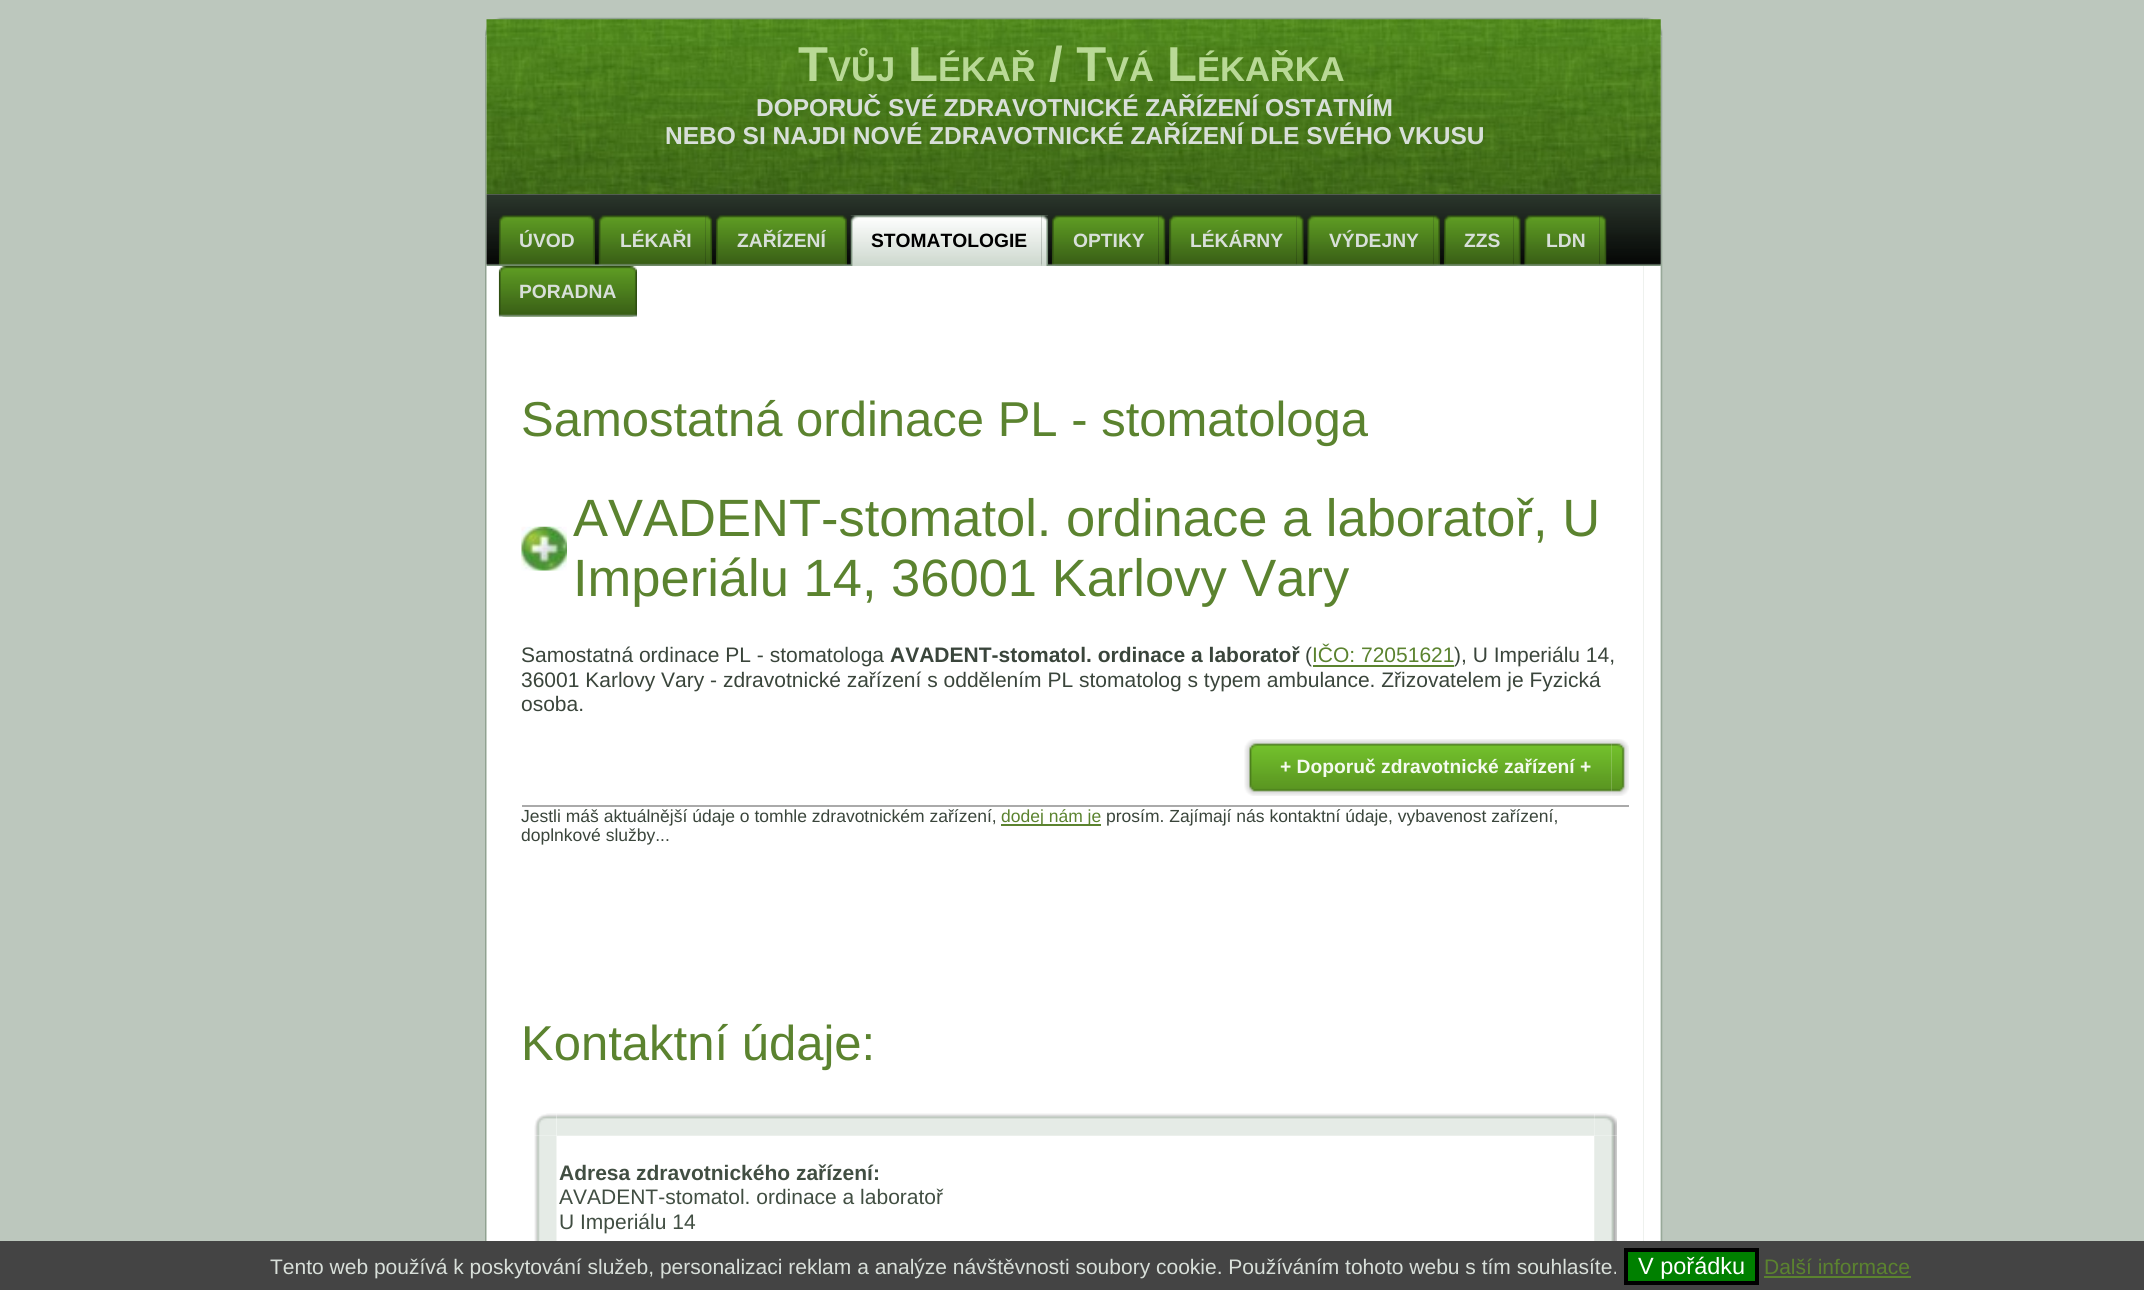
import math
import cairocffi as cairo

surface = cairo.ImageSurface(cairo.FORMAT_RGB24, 2144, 1290)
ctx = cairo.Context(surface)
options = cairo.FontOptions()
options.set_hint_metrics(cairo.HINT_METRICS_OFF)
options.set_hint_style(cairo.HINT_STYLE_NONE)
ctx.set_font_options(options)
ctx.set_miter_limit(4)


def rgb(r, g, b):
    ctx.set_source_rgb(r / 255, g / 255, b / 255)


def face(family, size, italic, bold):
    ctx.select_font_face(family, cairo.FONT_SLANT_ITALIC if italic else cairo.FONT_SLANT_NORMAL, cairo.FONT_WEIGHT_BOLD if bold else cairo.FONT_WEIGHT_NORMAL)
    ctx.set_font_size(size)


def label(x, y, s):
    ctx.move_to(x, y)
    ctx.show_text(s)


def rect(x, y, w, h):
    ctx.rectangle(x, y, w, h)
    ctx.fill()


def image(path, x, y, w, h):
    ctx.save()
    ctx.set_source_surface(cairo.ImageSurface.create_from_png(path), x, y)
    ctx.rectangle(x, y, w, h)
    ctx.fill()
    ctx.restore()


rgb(188, 199, 189)
ctx.paint()
image('image0.png', 485, 17, 19, 20)
image('image1.png', 504, 17, 1139, 3)
image('image2.png', 1643, 17, 20, 20)
image('image3.png', 485, 37, 19, 1204)
image('image30.png', 1643, 37, 20, 1204)
rgb(255, 255, 255)
rect(504, 194, 1139, 1047)
image('image4.png', 486, 19, 1175, 176)
face('Liberation Sans', 49, 0, 1)
rgb(185, 217, 150)
label(798, 81, 'T')
face('Liberation Sans', 34.5, 0, 1)
label(828, 81, 'VŮJ')
face('Liberation Sans', 49, 0, 1)
label(908, 81, 'L')
face('Liberation Sans', 34.5, 0, 1)
label(938, 81, 'ÉKAŘ')
face('Liberation Sans', 49, 0, 1)
label(1049, 81, '/ T')
face('Liberation Sans', 34.5, 0, 1)
label(1106, 81, 'VÁ')
face('Liberation Sans', 49, 0, 1)
label(1167, 81, 'L')
face('Liberation Sans', 34.5, 0, 1)
label(1197, 81, 'ÉKAŘKA')
face('Liberation Sans', 24.5, 0, 1)
rgb(216, 223, 217)
label(756, 116, 'DOPORUČ SVÉ ZDRAVOTNICKÉ ZAŘÍZENÍ OSTATNÍM')
label(665, 144, 'NEBO SI NAJDI NOVÉ ZDRAVOTNICKÉ ZAŘÍZENÍ DLE SVÉHO VKUSU')
image('image5.png', 486, 194, 1175, 72)
image('image6.png', 498, 215, 90, 51)
image('image7.png', 588, 215, 7, 51)
face('Liberation Sans', 19.25, 0, 1)
label(519, 247, 'ÚVOD')
image('image8.png', 598, 215, 108, 51)
image('image9.png', 705, 215, 8, 51)
label(620, 247, 'LÉKAŘI')
image('image10.png', 715, 215, 125, 51)
image('image7.png', 840, 215, 7, 51)
label(737, 247, 'ZAŘÍZENÍ')
image('image11.png', 850, 215, 192, 51)
image('image12.png', 1041, 215, 8, 51)
rgb(0, 0, 0)
label(871, 247, 'STOMATOLOGIE')
image('image13.png', 1051, 215, 108, 51)
image('image14.png', 1158, 215, 8, 51)
rgb(216, 223, 217)
label(1073, 247, 'OPTIKY')
image('image15.png', 1169, 215, 128, 51)
image('image16.png', 1296, 215, 8, 51)
label(1190, 247, 'LÉKÁRNY')
image('image17.png', 1307, 215, 127, 51)
image('image9.png', 1433, 215, 8, 51)
label(1329, 247, 'VÝDEJNY')
image('image18.png', 1443, 215, 71, 51)
image('image16.png', 1513, 215, 8, 51)
label(1464, 247, 'ZZS')
image('image19.png', 1524, 215, 76, 51)
image('image14.png', 1599, 215, 8, 51)
label(1546, 247, 'LDN')
image('image20.png', 498, 266, 132, 51)
image('image21.png', 630, 266, 7, 51)
label(519, 298, 'PORADNA')
face('Liberation Sans', 49, 0, 0)
rgb(91, 131, 47)
label(521, 436, 'Samostatná ordinace PL - stomatologa')
image('image22.png', 521, 526, 46, 45)
face('Liberation Sans', 52.5, 0, 0)
label(573, 536, 'AVADENT-stomatol. ordinace a laboratoř, U')
label(573, 596, 'Imperiálu 14, 36001 Karlovy Vary')
face('Liberation Sans', 21, 0, 0)
rgb(58, 69, 59)
label(521, 662, 'Samostatná ordinace PL - stomatologa')
face('Liberation Sans', 21, 0, 1)
label(890, 662, 'AVADENT-stomatol. ordinace a laboratoř')
face('Liberation Sans', 21, 0, 0)
label(1305, 662, '(')
rgb(91, 131, 47)
label(1312, 662, 'IČO: 72051621')
rect(1313, 665, 141, 2)
rgb(58, 69, 59)
label(1454, 662, '), U Imperiálu 14,')
label(521, 687, '36001 Karlovy Vary - zdravotnické zařízení s oddělením PL stomatolog s typem ambulance. Zřizovatelem je Fyzická')
label(521, 711, 'osoba.')
image('image23.png', 1244, 739, 368, 57)
image('image24.png', 1611, 739, 18, 57)
face('Liberation Sans', 19.25, 0, 1)
rgb(245, 250, 240)
label(1280, 773, '+ Doporuč zdravotnické zařízení +')
rgb(170, 170, 170)
rect(522, 805, 1107, 2)
face('Liberation Sans', 17.5, 0, 0)
rgb(58, 69, 59)
label(521, 822, 'Jestli máš aktuálnější údaje o tomhle zdravotnickém zařízení,')
rgb(91, 131, 47)
rect(1001, 824, 100, 2)
label(1001, 822, 'dodej nám je')
rgb(58, 69, 59)
label(1106, 822, 'prosím. Zajímají nás kontaktní údaje, vybavenost zařízení,')
label(521, 841, 'doplnkové služby...')
face('Liberation Sans', 49, 0, 0)
rgb(91, 131, 47)
label(521, 1060, 'Kontaktní údaje:')
image('image25.png', 534, 1113, 23, 23)
image('image26.png', 556, 1113, 1038, 23)
image('image27.png', 1594, 1113, 23, 23)
image('image28.png', 534, 1136, 23, 105)
face('Liberation Sans', 21, 0, 1)
rgb(65, 78, 66)
label(559, 1180, 'Adresa zdravotnického zařízení:')
face('Liberation Sans', 21, 0, 0)
label(559, 1204, 'AVADENT-stomatol. ordinace a laboratoř')
label(559, 1229, 'U Imperiálu 14')
image('image29.png', 1594, 1136, 23, 105)
rgb(68, 68, 68)
rect(0, 1241, 2144, 49)
rgb(216, 223, 217)
label(270, 1274, 'Tento web používá k poskytování služeb, personalizaci reklam a analýze návštěvnosti soubory cookie. Používáním tohoto webu s tím souhlasíte.')
rgb(0, 128, 0)
ctx.rectangle(1626, 1250, 131, 33)
ctx.fill_preserve()
rgb(0, 0, 0)
ctx.set_line_width(4)
ctx.stroke()
face('Liberation Sans', 23.5, 0, 0)
rgb(255, 255, 255)
label(1638, 1274, 'V pořádku')
face('Liberation Sans', 21, 0, 0)
rgb(91, 131, 47)
label(1764, 1274, 'Další informace')
rect(1764, 1276, 147, 2)
surface.write_to_png('render.png')
